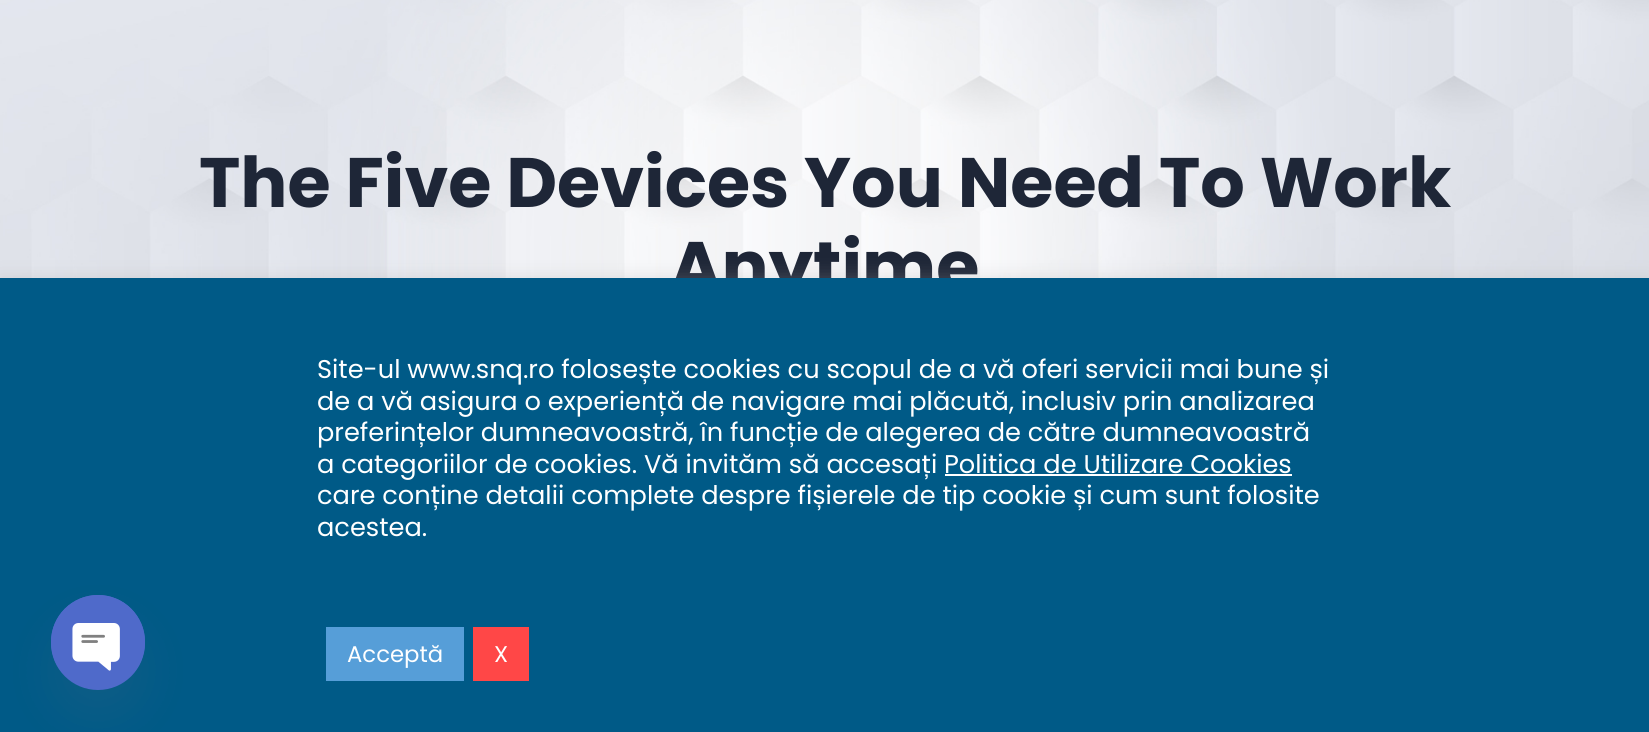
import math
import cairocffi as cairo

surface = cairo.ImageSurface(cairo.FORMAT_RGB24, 1649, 732)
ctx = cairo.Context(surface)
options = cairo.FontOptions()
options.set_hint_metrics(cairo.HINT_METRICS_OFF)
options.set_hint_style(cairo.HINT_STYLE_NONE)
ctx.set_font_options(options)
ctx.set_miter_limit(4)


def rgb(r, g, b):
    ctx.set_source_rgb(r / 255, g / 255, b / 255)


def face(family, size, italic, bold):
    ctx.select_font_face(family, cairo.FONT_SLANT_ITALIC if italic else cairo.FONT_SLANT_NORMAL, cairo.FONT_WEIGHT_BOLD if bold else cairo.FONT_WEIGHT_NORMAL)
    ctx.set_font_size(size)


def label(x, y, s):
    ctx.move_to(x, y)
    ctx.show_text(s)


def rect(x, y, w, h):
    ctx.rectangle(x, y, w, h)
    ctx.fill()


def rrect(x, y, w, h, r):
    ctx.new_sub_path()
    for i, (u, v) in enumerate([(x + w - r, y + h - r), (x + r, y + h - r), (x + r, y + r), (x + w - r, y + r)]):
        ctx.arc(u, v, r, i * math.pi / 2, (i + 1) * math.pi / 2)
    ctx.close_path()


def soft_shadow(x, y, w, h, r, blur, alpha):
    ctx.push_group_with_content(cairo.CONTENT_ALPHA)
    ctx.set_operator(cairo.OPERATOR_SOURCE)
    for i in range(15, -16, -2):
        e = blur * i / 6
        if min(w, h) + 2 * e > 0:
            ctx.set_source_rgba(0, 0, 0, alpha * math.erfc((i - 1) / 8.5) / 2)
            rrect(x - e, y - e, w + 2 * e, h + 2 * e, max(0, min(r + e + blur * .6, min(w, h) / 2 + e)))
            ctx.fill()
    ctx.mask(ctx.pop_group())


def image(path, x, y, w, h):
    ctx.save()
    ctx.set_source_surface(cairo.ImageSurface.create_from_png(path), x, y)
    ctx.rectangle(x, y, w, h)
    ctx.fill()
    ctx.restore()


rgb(255, 255, 255)
ctx.paint()
image('image0.png', 0, 0, 1649, 278)
face('Poppins', 70, 0, 1)
rgb(30, 38, 55)
label(199, 207, 'The Five Devices You Need To Work')
label(670, 291, 'Anytime')
rgb(172, 171, 171)
soft_shadow(0, 277, 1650, 455, 0, 9, 0.3)
rgb(0, 90, 135)
rect(0, 278, 1649, 454)
rgb(73, 104, 126)
soft_shadow(51, 623, 94, 95, 47, 21, 0.16)
rgb(79, 106, 202)
rrect(51, 595, 94, 95, 47)
ctx.fill()
image('image1.png', 51, 595, 94, 76)
face('Poppins', 25.65, 0, 0)
rgb(255, 255, 255)
label(317, 378, 'Site-ul www.snq.ro folosește cookies cu scopul de a vă oferi servicii mai bune și')
label(317, 410, 'de a vă asigura o experiență de navigare mai plăcută, inclusiv prin analizarea')
label(317, 441, 'preferințelor dumneavoastră, în funcție de alegerea de către dumneavoastră')
label(317, 473, 'a categoriilor de cookies. Vă invităm să accesați')
label(944, 473, 'Politica de Utilizare Cookies')
rect(945, 474, 347, 2)
label(317, 504, 'care conține detalii complete despre fișierele de tip cookie și cum sunt folosite')
label(317, 536, 'acestea.')
rgb(86, 158, 216)
rect(326, 627, 138, 54)
face('Poppins', 22.75, 0, 0)
rgb(255, 255, 255)
label(347, 662, 'Acceptă')
rgb(255, 71, 71)
rect(473, 627, 56, 54)
rgb(255, 255, 255)
label(494, 662, 'X')
surface.write_to_png('render.png')
